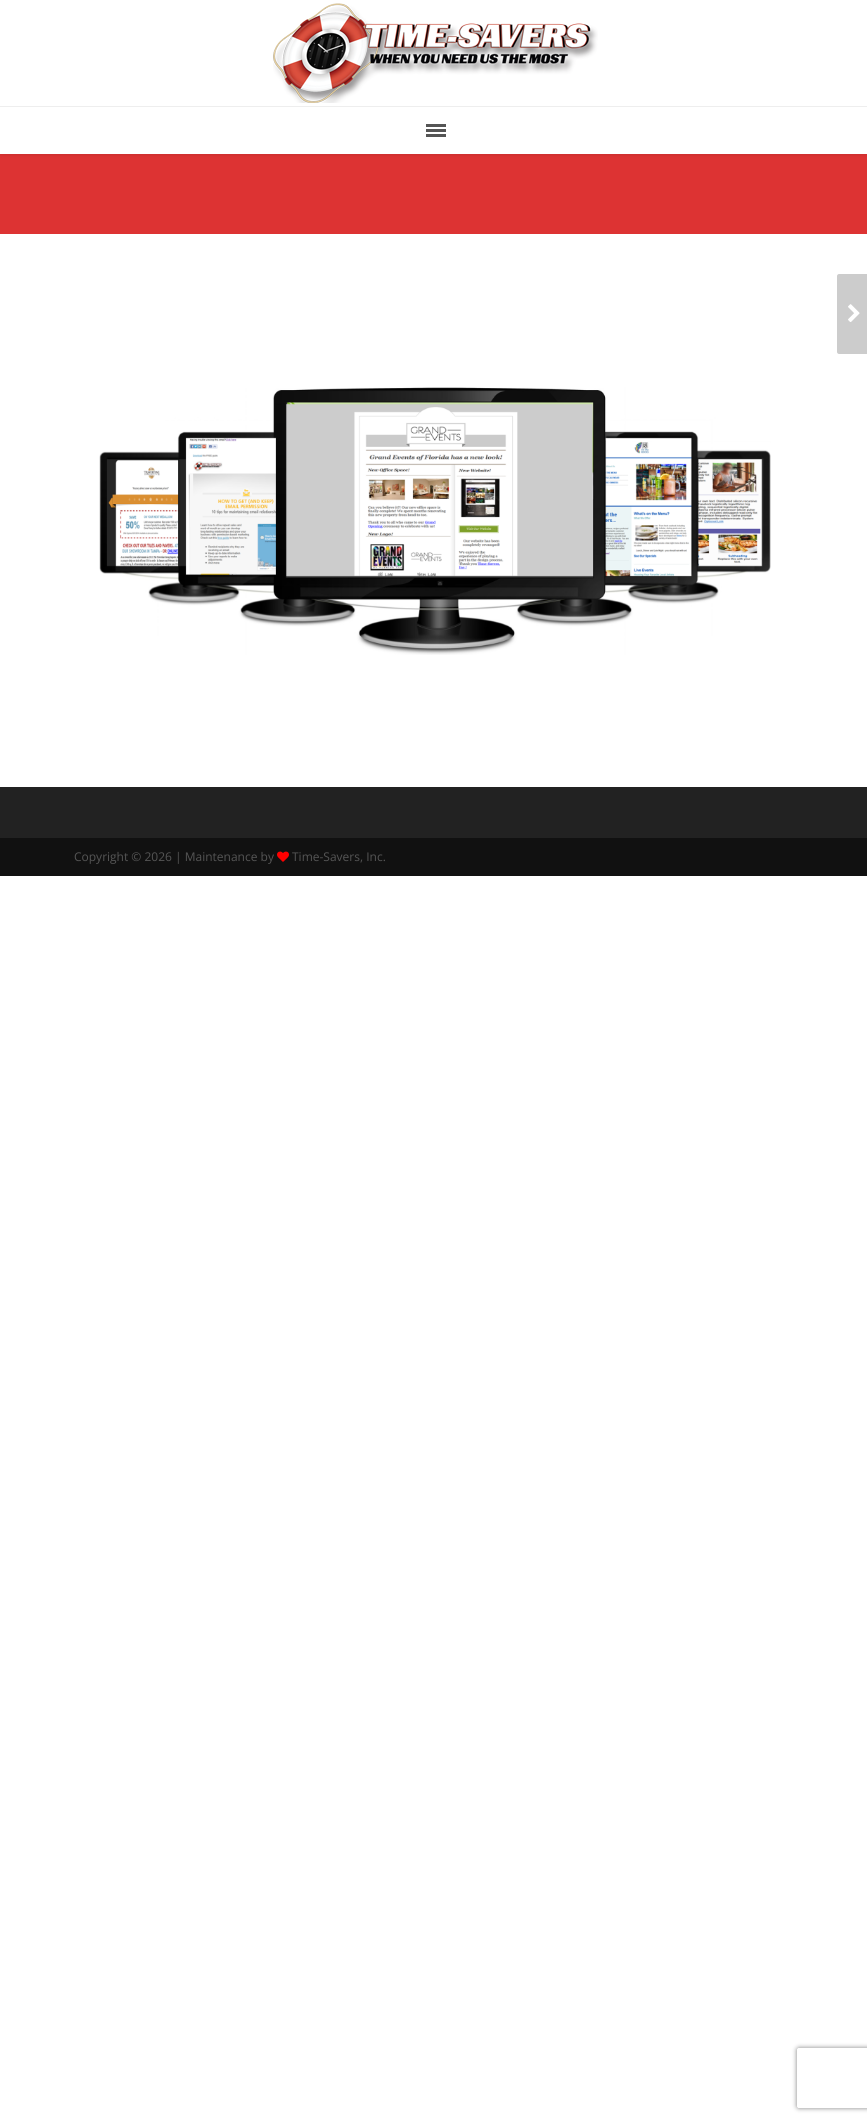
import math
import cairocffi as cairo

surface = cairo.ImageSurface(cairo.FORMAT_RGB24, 867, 2122)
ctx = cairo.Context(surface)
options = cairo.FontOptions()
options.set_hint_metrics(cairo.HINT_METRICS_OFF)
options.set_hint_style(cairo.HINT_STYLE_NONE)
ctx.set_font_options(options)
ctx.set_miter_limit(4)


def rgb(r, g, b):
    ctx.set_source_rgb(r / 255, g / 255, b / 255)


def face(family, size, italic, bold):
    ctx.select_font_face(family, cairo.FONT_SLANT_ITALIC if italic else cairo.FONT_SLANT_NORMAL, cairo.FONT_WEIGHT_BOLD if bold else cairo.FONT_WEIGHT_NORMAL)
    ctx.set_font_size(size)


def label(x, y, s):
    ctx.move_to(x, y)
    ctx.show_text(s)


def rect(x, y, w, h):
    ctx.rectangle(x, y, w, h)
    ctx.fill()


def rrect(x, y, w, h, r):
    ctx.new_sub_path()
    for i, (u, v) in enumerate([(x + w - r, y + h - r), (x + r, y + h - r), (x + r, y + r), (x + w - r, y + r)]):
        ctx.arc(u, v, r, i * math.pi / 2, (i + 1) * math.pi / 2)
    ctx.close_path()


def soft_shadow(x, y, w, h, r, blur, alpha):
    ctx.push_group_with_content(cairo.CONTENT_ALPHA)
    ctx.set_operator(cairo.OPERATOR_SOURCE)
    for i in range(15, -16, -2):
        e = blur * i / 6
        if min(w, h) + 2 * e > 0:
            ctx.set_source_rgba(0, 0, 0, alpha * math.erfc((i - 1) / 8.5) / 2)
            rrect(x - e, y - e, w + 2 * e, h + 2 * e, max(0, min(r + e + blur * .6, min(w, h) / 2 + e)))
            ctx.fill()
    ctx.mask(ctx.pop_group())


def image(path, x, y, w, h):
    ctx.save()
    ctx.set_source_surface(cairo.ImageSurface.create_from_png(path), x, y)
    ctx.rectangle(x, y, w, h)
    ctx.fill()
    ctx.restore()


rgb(255, 255, 255)
ctx.paint()
image('image0.png', 273, 3, 325, 100)
rgb(238, 238, 238)
rect(0, 106, 867, 1)
rgb(85, 85, 85)
rect(426, 124, 20, 3)
rect(426, 129, 20, 3)
rect(426, 134, 20, 3)
rgb(221, 51, 51)
rect(0, 154, 867, 80)
ctx.save()
ctx.rectangle(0, 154, 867, 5)
ctx.clip()
rgb(0, 0, 0)
soft_shadow(0, 150, 867, 5, 2.5, 2, 0.1)
ctx.restore()
rgb(204, 204, 204)
ctx.new_path()
ctx.move_to(839, 274)
ctx.line_to(867, 274)
ctx.line_to(867, 354)
ctx.line_to(839, 354)
ctx.curve_to(838, 354, 837, 353, 837, 352)
ctx.line_to(837, 276)
ctx.curve_to(837, 275, 838, 274, 839, 274)
ctx.close_path()
ctx.fill()
image('image1.png', 848, 304, 12, 18)
image('image2.png', 99, 387, 672, 268)
rgb(34, 34, 34)
rect(0, 787, 867, 51)
rgb(17, 17, 17)
rect(0, 838, 867, 38)
face('Open Sans', 12, 0, 0)
rgb(85, 85, 85)
label(74, 861, 'Copyright © 2026 | Maintenance by')
image('image3.png', 277, 851, 12, 11)
label(292, 861, 'Time-Savers, Inc.')
ctx.save()
ctx.set_fill_rule(cairo.FILL_RULE_EVEN_ODD)
ctx.new_path()
ctx.move_to(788, 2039)
ctx.line_to(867, 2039)
ctx.line_to(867, 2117)
ctx.line_to(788, 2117)
ctx.close_path()
ctx.move_to(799, 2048)
ctx.line_to(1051, 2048)
ctx.curve_to(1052, 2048, 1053, 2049, 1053, 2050)
ctx.line_to(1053, 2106)
ctx.curve_to(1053, 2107, 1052, 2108, 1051, 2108)
ctx.line_to(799, 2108)
ctx.curve_to(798, 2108, 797, 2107, 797, 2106)
ctx.line_to(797, 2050)
ctx.curve_to(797, 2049, 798, 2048, 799, 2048)
ctx.close_path()
ctx.clip()
rgb(128, 128, 128)
soft_shadow(797, 2048, 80, 60, 2, 2.5, 1)
ctx.restore()
surface.write_to_png('render.png')
